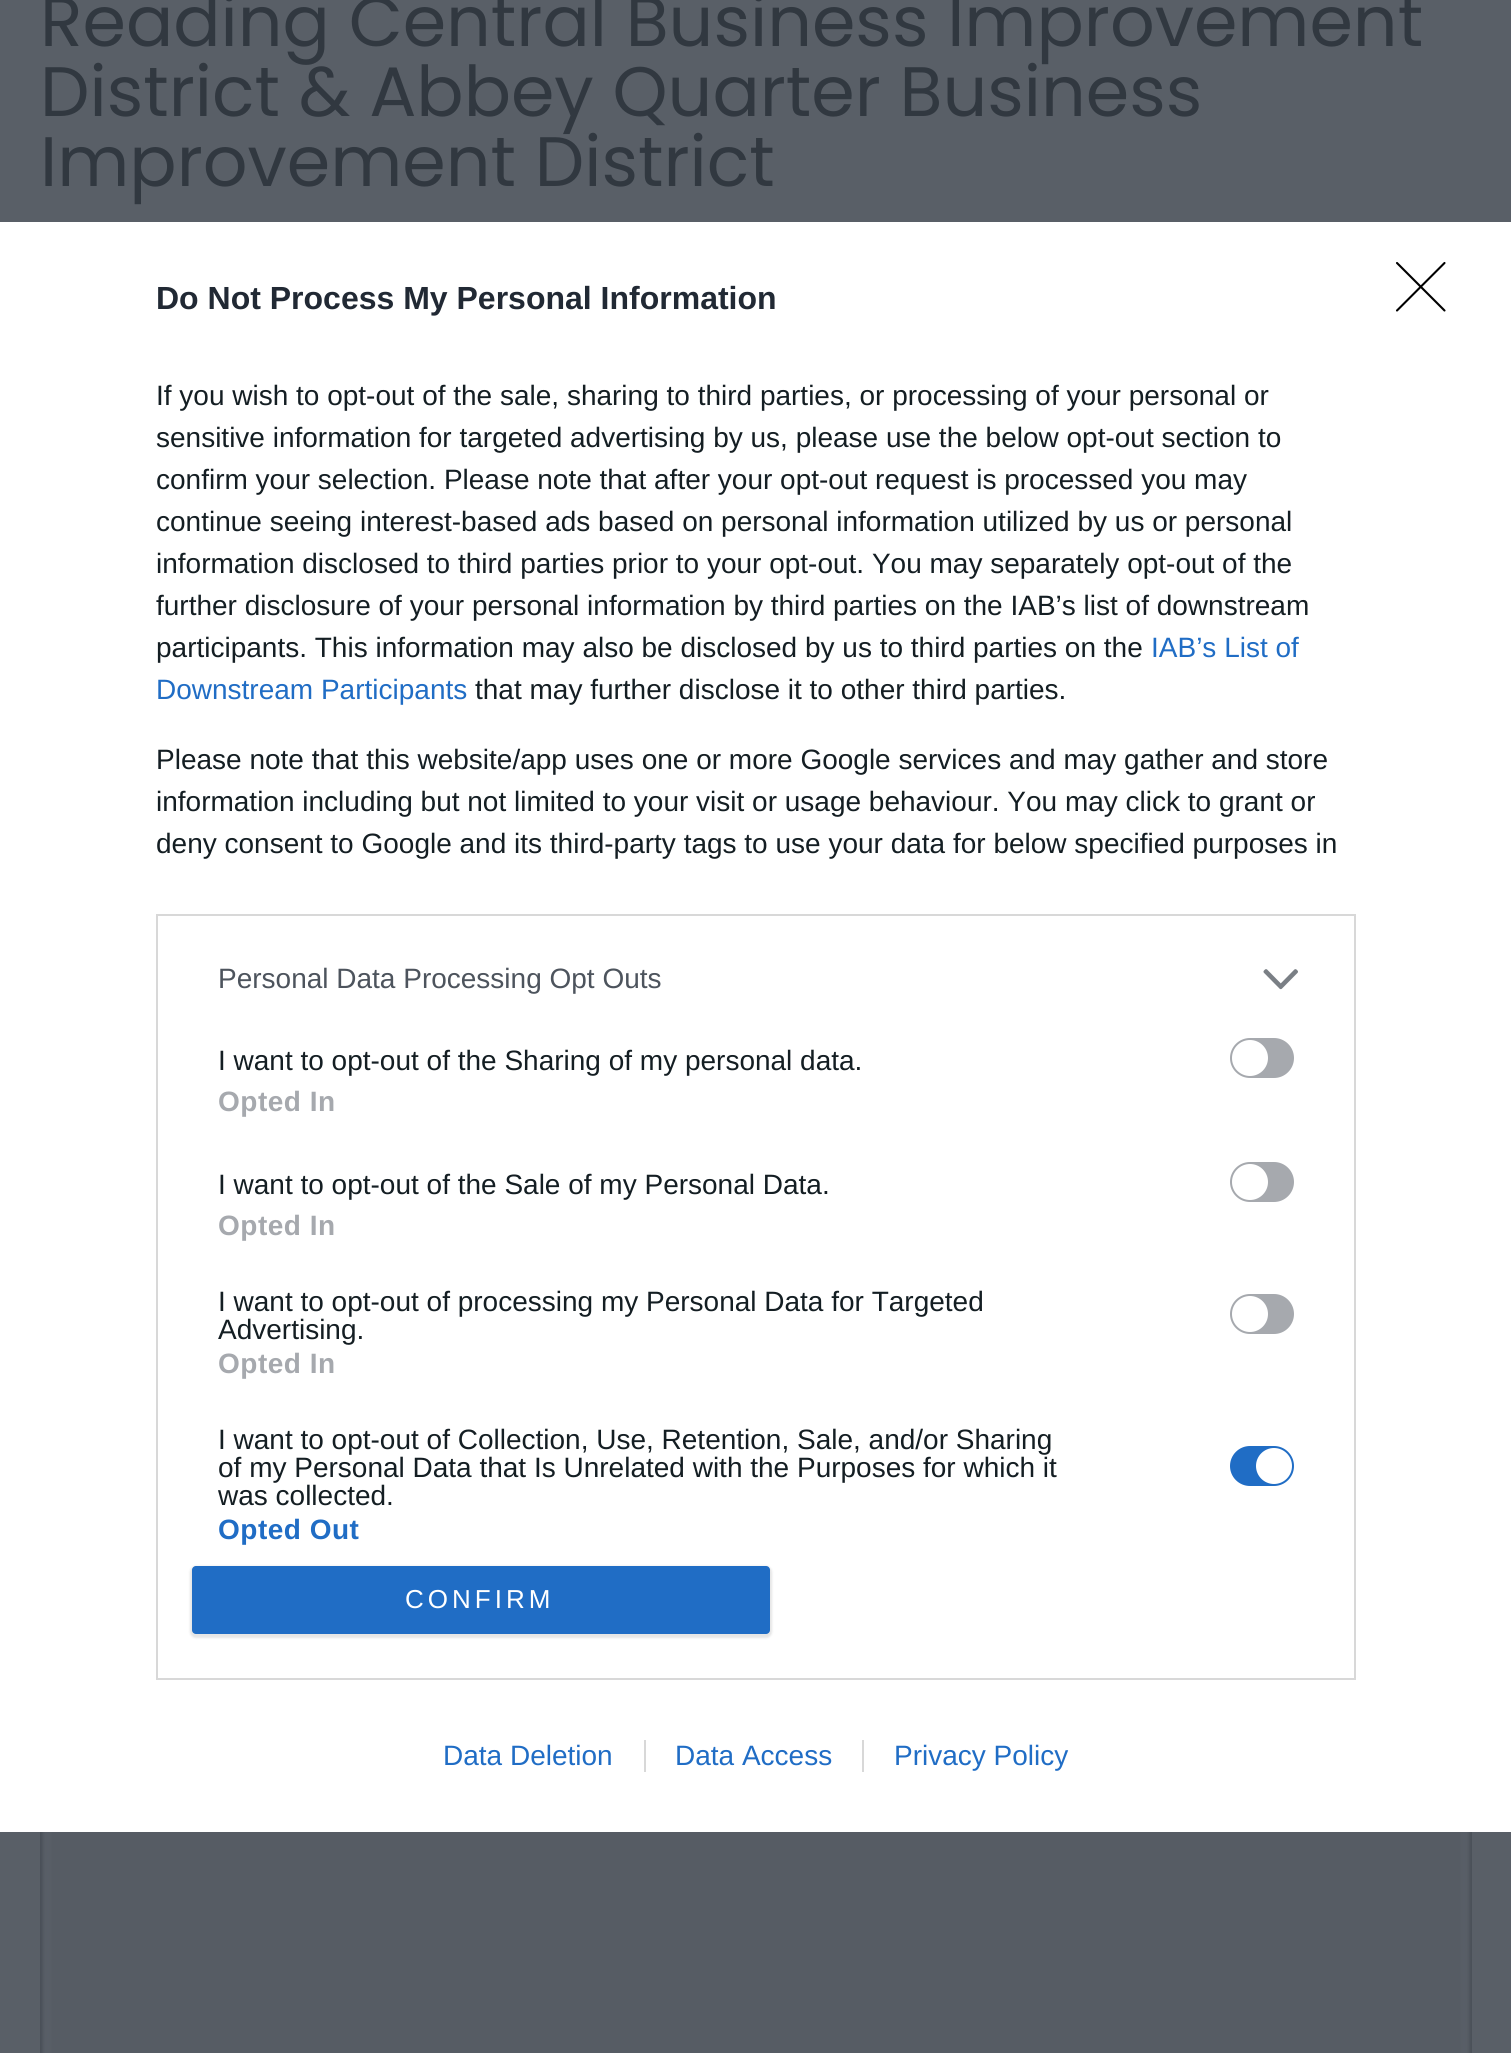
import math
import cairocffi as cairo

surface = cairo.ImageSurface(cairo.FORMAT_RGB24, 1511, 2053)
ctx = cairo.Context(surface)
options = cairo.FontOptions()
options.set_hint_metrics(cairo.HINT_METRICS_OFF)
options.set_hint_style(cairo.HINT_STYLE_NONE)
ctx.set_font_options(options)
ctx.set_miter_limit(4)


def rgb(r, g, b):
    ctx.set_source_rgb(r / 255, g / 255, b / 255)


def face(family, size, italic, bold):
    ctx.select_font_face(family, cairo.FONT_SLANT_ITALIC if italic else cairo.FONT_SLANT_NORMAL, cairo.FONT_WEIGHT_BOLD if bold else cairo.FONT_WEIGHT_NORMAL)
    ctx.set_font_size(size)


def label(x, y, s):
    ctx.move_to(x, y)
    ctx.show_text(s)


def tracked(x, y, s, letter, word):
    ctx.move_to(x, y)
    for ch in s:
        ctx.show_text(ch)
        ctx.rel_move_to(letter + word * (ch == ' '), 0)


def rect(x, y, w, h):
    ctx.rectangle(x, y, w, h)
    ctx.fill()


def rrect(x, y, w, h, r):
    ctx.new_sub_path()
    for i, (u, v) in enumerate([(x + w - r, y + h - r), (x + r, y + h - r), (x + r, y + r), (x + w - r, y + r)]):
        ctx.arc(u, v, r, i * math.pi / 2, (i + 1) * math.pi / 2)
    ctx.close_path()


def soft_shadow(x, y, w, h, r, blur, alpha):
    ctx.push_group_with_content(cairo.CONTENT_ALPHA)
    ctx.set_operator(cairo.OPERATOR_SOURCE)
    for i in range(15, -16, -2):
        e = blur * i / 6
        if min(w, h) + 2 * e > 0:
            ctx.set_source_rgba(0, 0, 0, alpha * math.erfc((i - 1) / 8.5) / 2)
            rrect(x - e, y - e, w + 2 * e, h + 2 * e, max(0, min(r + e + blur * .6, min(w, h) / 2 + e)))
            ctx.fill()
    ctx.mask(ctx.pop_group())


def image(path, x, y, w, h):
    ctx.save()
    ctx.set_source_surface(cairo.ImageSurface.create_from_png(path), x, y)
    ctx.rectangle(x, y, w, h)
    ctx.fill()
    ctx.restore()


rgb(89, 95, 103)
ctx.paint()
face('Poppins', 70, 0, 0)
rgb(49, 56, 64)
label(40, 46, 'Reading Central Business Improvement')
label(40, 116, 'District & Abbey Quarter Business')
label(40, 186, 'Improvement District')
image('image0.png', 40, 1832, 1432, 221)
rgb(255, 255, 255)
rect(0, 222, 1511, 1610)
face('Liberation Sans', 32, 0, 1)
rgb(33, 41, 52)
label(156, 309, 'Do Not Process My Personal Information')
face('Liberation Sans', 28, 0, 0)
rgb(20, 30, 35)
label(156, 405, 'If you wish to opt-out of the sale, sharing to third parties, or processing of your personal or')
label(156, 447, 'sensitive information for targeted advertising by us, please use the below opt-out section to')
label(156, 489, 'confirm your selection. Please note that after your opt-out request is processed you may')
label(156, 531, 'continue seeing interest-based ads based on personal information utilized by us or personal')
label(156, 573, 'information disclosed to third parties prior to your opt-out. You may separately opt-out of the')
label(156, 615, 'further disclosure of your personal information by third parties on the IAB’s list of downstream')
label(156, 657, 'participants. This information may also be disclosed by us to third parties on the')
rgb(32, 109, 197)
label(1151, 657, 'IAB’s List of')
label(156, 699, 'Downstream Participants')
rgb(20, 30, 35)
label(475, 699, 'that may further disclose it to other third parties.')
label(156, 769, 'Please note that this website/app uses one or more Google services and may gather and store')
label(156, 811, 'information including but not limited to your visit or usage behaviour. You may click to grant or')
label(156, 853, 'deny consent to Google and its third-party tags to use your data for below specified purposes in')
ctx.rectangle(157, 915, 1198, 764)
rgb(216, 216, 216)
ctx.stroke()
rgb(77, 84, 93)
label(218, 988, 'Personal Data Processing Opt Outs')
image('image1.png', 1263, 969, 35, 21)
rgb(20, 30, 35)
label(218, 1070, 'I want to opt-out of the Sharing of my personal data.')
rgb(166, 169, 174)
rrect(1231, 1039, 62, 38, 19)
ctx.fill_preserve()
ctx.stroke()
rgb(255, 255, 255)
ctx.arc(1250, 1058, 18, 0, 2 * math.pi)
ctx.fill()
face('Liberation Sans', 28, 0, 1)
rgb(166, 169, 174)
tracked(218, 1111, 'Opted In', 0.5, 0)
face('Liberation Sans', 28, 0, 0)
rgb(20, 30, 35)
label(218, 1194, 'I want to opt-out of the Sale of my Personal Data.')
rgb(166, 169, 174)
rrect(1231, 1163, 62, 38, 19)
ctx.fill_preserve()
ctx.stroke()
rgb(255, 255, 255)
ctx.arc(1250, 1182, 18, 0, 2 * math.pi)
ctx.fill()
face('Liberation Sans', 28, 0, 1)
rgb(166, 169, 174)
tracked(218, 1235, 'Opted In', 0.5, 0)
face('Liberation Sans', 28, 0, 0)
rgb(20, 30, 35)
label(218, 1311, 'I want to opt-out of processing my Personal Data for Targeted')
label(218, 1339, 'Advertising.')
rgb(166, 169, 174)
rrect(1231, 1295, 62, 38, 19)
ctx.fill_preserve()
ctx.stroke()
rgb(255, 255, 255)
ctx.arc(1250, 1314, 18, 0, 2 * math.pi)
ctx.fill()
face('Liberation Sans', 28, 0, 1)
rgb(166, 169, 174)
tracked(218, 1373, 'Opted In', 0.5, 0)
face('Liberation Sans', 28, 0, 0)
rgb(20, 30, 35)
label(218, 1449, 'I want to opt-out of Collection, Use, Retention, Sale, and/or Sharing')
label(218, 1477, 'of my Personal Data that Is Unrelated with the Purposes for which it')
label(218, 1505, 'was collected.')
rgb(32, 109, 197)
rrect(1231, 1447, 62, 38, 19)
ctx.fill_preserve()
ctx.stroke()
rgb(255, 255, 255)
ctx.arc(1274, 1466, 18, 0, 2 * math.pi)
ctx.fill()
face('Liberation Sans', 28, 0, 1)
rgb(32, 109, 197)
tracked(218, 1539, 'Opted Out', 0.5, 0)
rgb(0, 0, 0)
soft_shadow(190, 1566, 582, 72, 6, 1, 0.1)
rgb(32, 109, 197)
rrect(192, 1566, 578, 68, 4)
ctx.fill()
face('Liberation Sans', 26, 0, 0)
rgb(255, 255, 255)
tracked(405, 1608, 'CONFIRM', 4, 0)
ctx.new_path()
ctx.move_to(1397, 263)
ctx.line_to(1444.5, 310.5)
ctx.move_to(1444.5, 263)
ctx.line_to(1397, 310.5)
rgb(0, 0, 0)
ctx.set_line_width(2.1)
ctx.set_line_cap(cairo.LINE_CAP_ROUND)
ctx.set_line_join(cairo.LINE_JOIN_ROUND)
ctx.stroke()
face('Liberation Sans', 28, 0, 0)
rgb(32, 109, 197)
label(443, 1765, 'Data Deletion')
label(675, 1765, 'Data Access')
rgb(216, 216, 216)
rect(644, 1740, 2, 32)
rgb(32, 109, 197)
label(894, 1765, 'Privacy Policy')
rgb(216, 216, 216)
rect(862, 1740, 2, 32)
surface.write_to_png('render.png')
